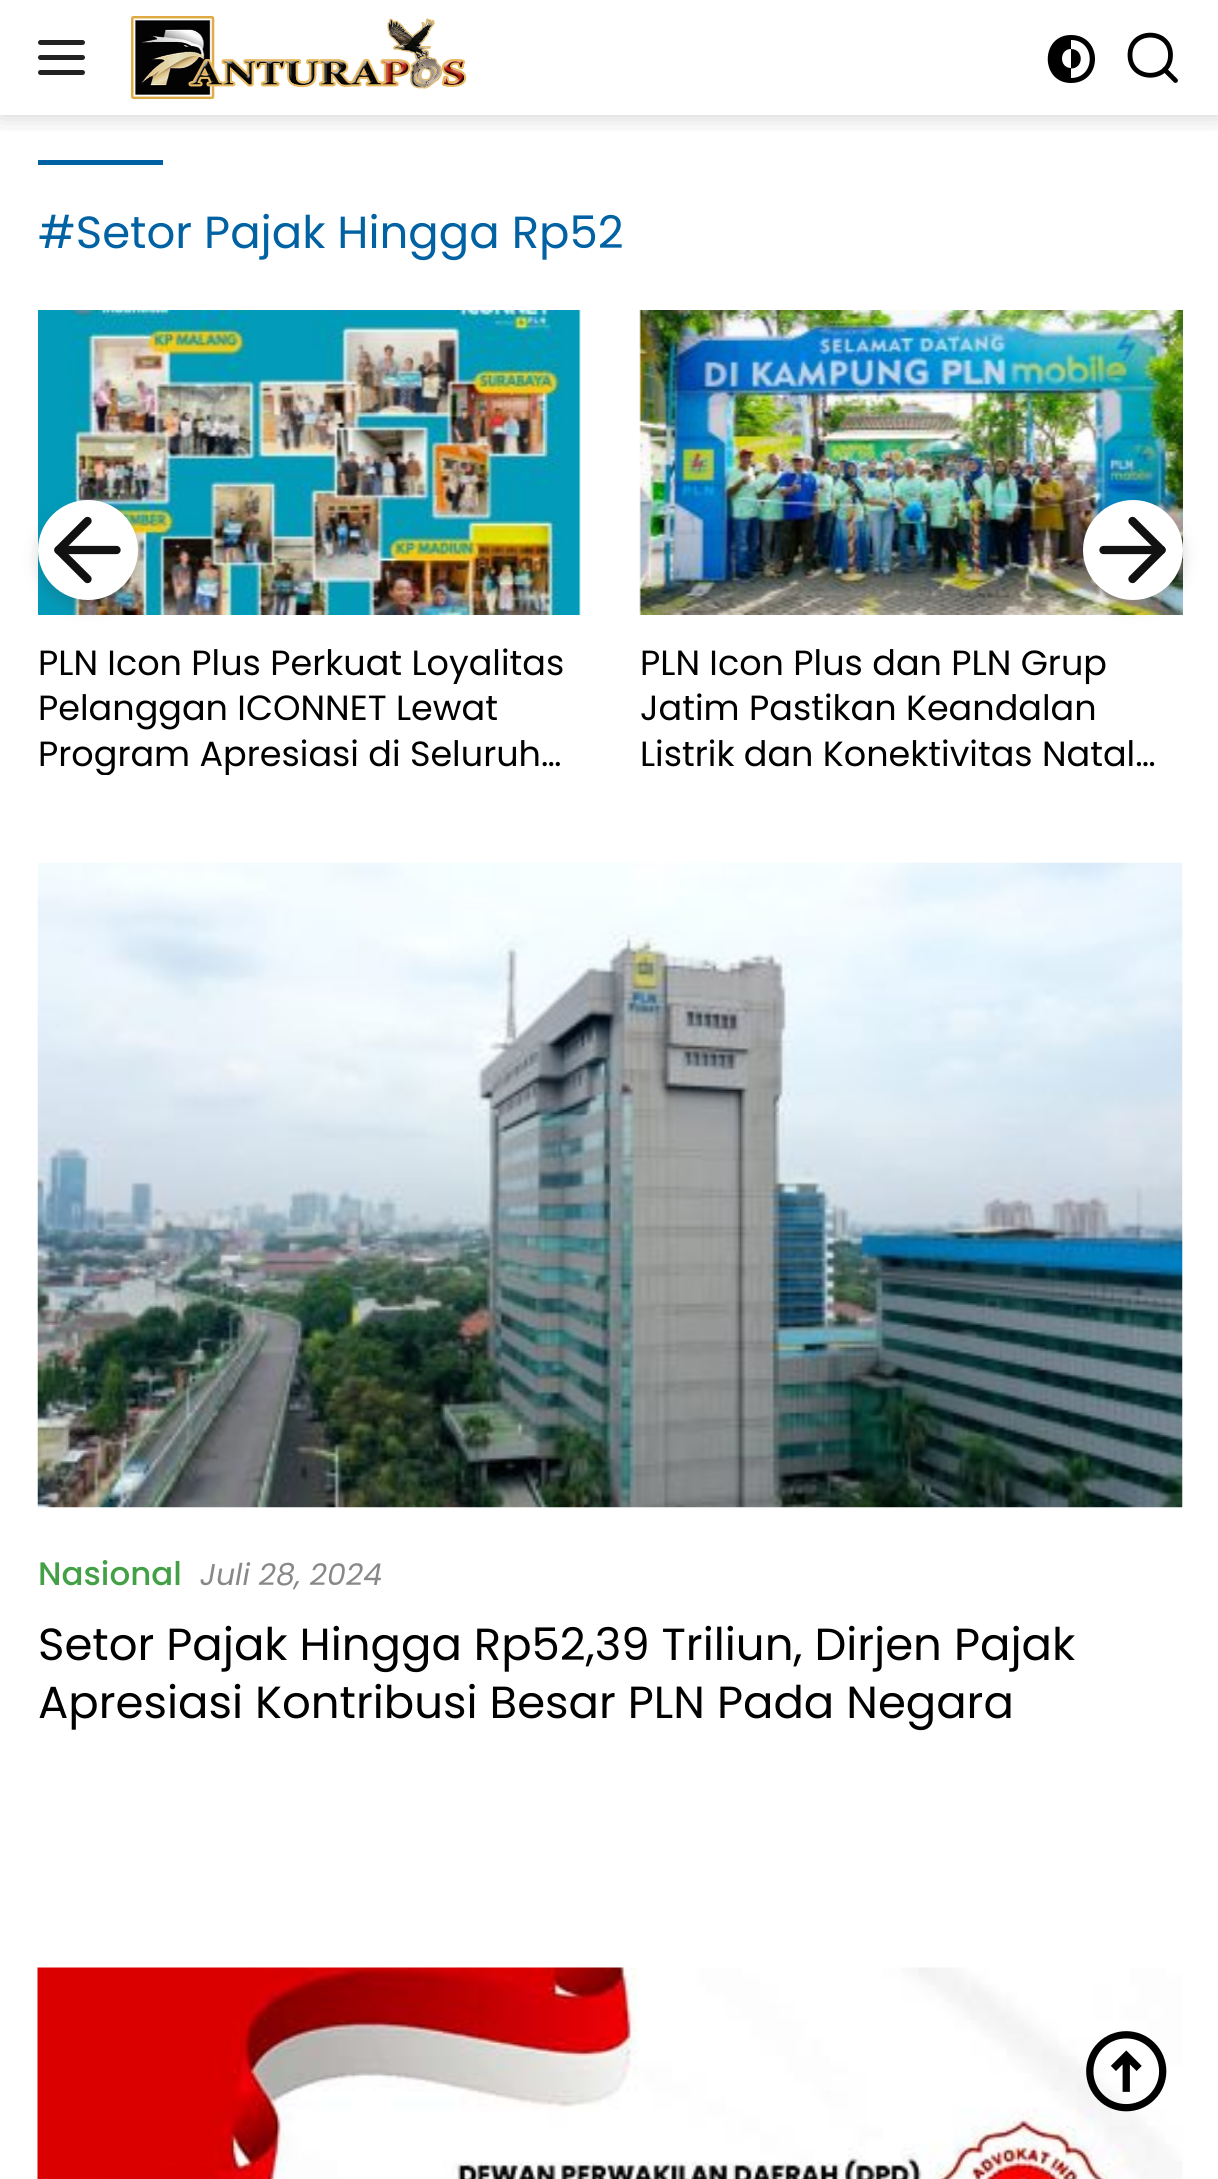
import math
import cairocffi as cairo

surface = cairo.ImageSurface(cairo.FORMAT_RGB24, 1218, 2179)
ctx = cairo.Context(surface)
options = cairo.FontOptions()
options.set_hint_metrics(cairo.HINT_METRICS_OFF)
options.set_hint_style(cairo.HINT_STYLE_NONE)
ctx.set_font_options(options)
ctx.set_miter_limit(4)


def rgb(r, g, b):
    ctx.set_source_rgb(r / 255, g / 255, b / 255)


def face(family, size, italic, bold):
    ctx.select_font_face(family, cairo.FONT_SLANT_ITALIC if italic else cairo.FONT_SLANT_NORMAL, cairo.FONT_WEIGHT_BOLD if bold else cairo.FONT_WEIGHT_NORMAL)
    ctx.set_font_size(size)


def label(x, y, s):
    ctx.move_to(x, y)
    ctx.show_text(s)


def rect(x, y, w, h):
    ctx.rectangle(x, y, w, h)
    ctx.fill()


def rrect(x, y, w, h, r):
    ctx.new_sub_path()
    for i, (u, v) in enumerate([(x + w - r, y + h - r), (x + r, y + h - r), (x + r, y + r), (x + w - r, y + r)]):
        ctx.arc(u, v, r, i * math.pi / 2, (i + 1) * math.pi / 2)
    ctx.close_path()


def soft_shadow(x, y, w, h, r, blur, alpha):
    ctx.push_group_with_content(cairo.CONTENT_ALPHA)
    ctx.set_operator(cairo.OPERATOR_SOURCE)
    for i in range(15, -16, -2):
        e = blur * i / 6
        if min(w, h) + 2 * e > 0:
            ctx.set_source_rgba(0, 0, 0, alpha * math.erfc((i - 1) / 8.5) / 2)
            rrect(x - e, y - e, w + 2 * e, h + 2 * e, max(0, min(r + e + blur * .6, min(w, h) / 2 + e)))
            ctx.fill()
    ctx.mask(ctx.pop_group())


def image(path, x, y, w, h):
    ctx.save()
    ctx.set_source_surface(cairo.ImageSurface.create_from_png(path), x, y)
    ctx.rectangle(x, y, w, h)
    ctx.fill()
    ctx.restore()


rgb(255, 255, 255)
ctx.paint()
ctx.save()
ctx.rectangle(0, 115, 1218, 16)
ctx.clip()
rgb(0, 0, 0)
soft_shadow(0, 0, 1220, 115, 0, 12.5, 0.2)
ctx.restore()
rgb(34, 34, 34)
rrect(38, 40, 47, 5, 2.5)
ctx.fill()
rrect(38, 55, 47, 5, 2.5)
ctx.fill()
rrect(38, 70, 47, 5, 2.5)
ctx.fill()
image('image0.png', 131, 16, 336, 83)
rgb(0, 0, 0)
ctx.new_path()
ctx.move_to(1071, 68.5)
ctx.curve_to(1084, 68.5, 1084, 49, 1071, 49)
ctx.close_path()
ctx.fill()
ctx.set_fill_rule(cairo.FILL_RULE_EVEN_ODD)
ctx.new_path()
ctx.move_to(1071, 35)
ctx.curve_to(1040, 35, 1040, 83, 1071, 83)
ctx.curve_to(1103, 83, 1103, 35, 1071, 35)
ctx.close_path()
ctx.move_to(1071, 40)
ctx.line_to(1071, 49)
ctx.curve_to(1059, 49, 1059, 68, 1071, 68)
ctx.line_to(1071, 78)
ctx.curve_to(1096, 78, 1096, 40, 1071, 40)
ctx.close_path()
ctx.fill()
ctx.new_path()
ctx.move_to(1175.5, 80.5)
ctx.line_to(1164.5, 69.5)
ctx.move_to(1170.5, 55)
ctx.curve_to(1170.5, 82, 1130, 82, 1130, 55)
ctx.curve_to(1130, 28.5, 1170.5, 28.5, 1170.5, 55)
ctx.close_path()
ctx.set_line_width(4.8)
ctx.set_line_cap(cairo.LINE_CAP_ROUND)
ctx.stroke()
rgb(0, 97, 163)
rect(38, 160, 125, 5)
face('Poppins', 45, 0, 0)
label(38, 248, '#Setor Pajak Hingga Rp52')
image('image1.png', 38, 310, 543, 305)
rgb(51, 51, 51)
soft_shadow(38, 508, 100, 100, 50, 7.5, 0.2)
rgb(255, 255, 255)
ctx.arc(88, 550, 50, 0, 2 * math.pi)
ctx.fill()
ctx.new_path()
ctx.move_to(116.5, 550)
ctx.line_to(58.5, 550)
rgb(17, 17, 17)
ctx.set_line_width(8.3)
ctx.set_line_join(cairo.LINE_JOIN_ROUND)
ctx.stroke()
ctx.new_path()
ctx.move_to(87.5, 579)
ctx.line_to(58.5, 550)
ctx.line_to(87.5, 521)
ctx.stroke()
image('image2.png', 639, 310, 544, 305)
rgb(51, 51, 51)
soft_shadow(1083, 508, 100, 100, 50, 7.5, 0.2)
rgb(255, 255, 255)
ctx.arc(1133, 550, 50, 0, 2 * math.pi)
ctx.fill()
ctx.new_path()
ctx.move_to(1103.5, 550)
ctx.line_to(1161.5, 550)
rgb(17, 17, 17)
ctx.stroke()
ctx.new_path()
ctx.move_to(1132.5, 521)
ctx.line_to(1161.5, 550)
ctx.line_to(1132.5, 579)
ctx.stroke()
face('Poppins', 35, 0, 0)
rgb(0, 0, 0)
label(38, 675, 'PLN Icon Plus Perkuat Loyalitas')
label(38, 720, 'Pelanggan ICONNET Lewat')
ctx.save()
ctx.set_fill_rule(cairo.FILL_RULE_WINDING)
ctx.rectangle(38, 640, 542, 135)
ctx.clip()
label(38, 766, 'Program Apresiasi di Seluruh…')
ctx.restore()
label(640, 675, 'PLN Icon Plus dan PLN Grup')
label(640, 720, 'Jatim Pastikan Keandalan')
label(640, 766, 'Listrik dan Konektivitas Natal…')
image('image3.png', 37, 862, 1146, 646)
face('Poppins Medium', 32.5, 0, 0)
rgb(67, 160, 71)
label(38, 1585, 'Nasional')
face('Poppins', 30, 1, 0)
rgb(136, 136, 136)
label(200, 1585, 'Juli 28, 2024')
face('Poppins', 45, 0, 0)
rgb(0, 0, 0)
label(38, 1660, 'Setor Pajak Hingga Rp52,39 Triliun, Dirjen Pajak')
label(38, 1718, 'Apresiasi Kontribusi Besar PLN Pada Negara')
image('image4.png', 37, 1967, 1146, 212)
image('image5.png', 1086, 2031, 81, 81)
surface.write_to_png('render.png')
